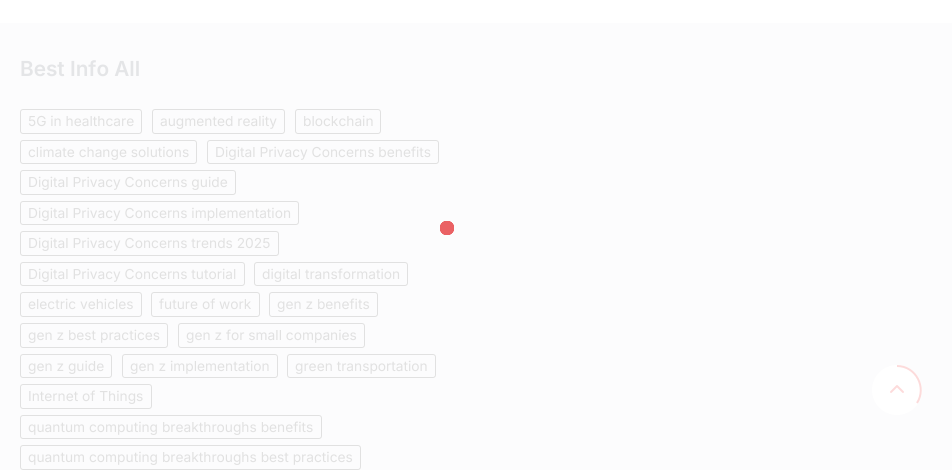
import math
import cairocffi as cairo

surface = cairo.ImageSurface(cairo.FORMAT_RGB24, 952, 470)
ctx = cairo.Context(surface)
options = cairo.FontOptions()
options.set_hint_metrics(cairo.HINT_METRICS_OFF)
options.set_hint_style(cairo.HINT_STYLE_NONE)
ctx.set_font_options(options)
ctx.set_miter_limit(4)


def rgb(r, g, b):
    ctx.set_source_rgb(r / 255, g / 255, b / 255)


def face(family, size, italic, bold):
    ctx.select_font_face(family, cairo.FONT_SLANT_ITALIC if italic else cairo.FONT_SLANT_NORMAL, cairo.FONT_WEIGHT_BOLD if bold else cairo.FONT_WEIGHT_NORMAL)
    ctx.set_font_size(size)


def label(x, y, s):
    ctx.move_to(x, y)
    ctx.show_text(s)


def rect(x, y, w, h):
    ctx.rectangle(x, y, w, h)
    ctx.fill()


def rrect(x, y, w, h, r):
    ctx.new_sub_path()
    for i, (u, v) in enumerate([(x + w - r, y + h - r), (x + r, y + h - r), (x + r, y + r), (x + w - r, y + r)]):
        ctx.arc(u, v, r, i * math.pi / 2, (i + 1) * math.pi / 2)
    ctx.close_path()


def image(path, x, y, w, h):
    ctx.save()
    ctx.set_source_surface(cairo.ImageSurface.create_from_png(path), x, y)
    ctx.rectangle(x, y, w, h)
    ctx.fill()
    ctx.restore()


rgb(255, 255, 255)
ctx.paint()
rgb(252, 252, 253)
rect(0, 23, 952, 447)
face('Inter SemiBold', 20.75, 0, 0)
rgb(228, 229, 231)
label(20, 76, 'Best Info All')
rrect(20.5, 109.5, 121, 24, 2.5)
rgb(225, 225, 225)
ctx.set_line_width(1)
ctx.stroke()
face('Inter', 13.75, 0, 0)
label(28, 126, '5G in healthcare')
rrect(152.5, 109.5, 132, 24, 2.5)
ctx.stroke()
label(160, 126, 'augmented reality')
rrect(295.5, 109.5, 85, 24, 2.5)
ctx.stroke()
label(303, 126, 'blockchain')
rrect(20.5, 140.5, 176, 23, 2.5)
ctx.stroke()
label(28, 157, 'climate change solutions')
rrect(207.5, 140.5, 231, 23, 2.5)
ctx.stroke()
label(215, 157, 'Digital Privacy Concerns benefits')
rrect(20.5, 170.5, 215, 24, 2.5)
ctx.stroke()
label(28, 187, 'Digital Privacy Concerns guide')
rrect(20.5, 201.5, 278, 23, 2.5)
ctx.stroke()
label(28, 218, 'Digital Privacy Concerns implementation')
rrect(20.5, 231.5, 258, 24, 2.5)
ctx.stroke()
label(28, 248, 'Digital Privacy Concerns trends 2025')
rrect(20.5, 262.5, 224, 23, 2.5)
ctx.stroke()
label(28, 279, 'Digital Privacy Concerns tutorial')
rrect(254.5, 262.5, 153, 23, 2.5)
ctx.stroke()
label(262, 279, 'digital transformation')
rrect(20.5, 292.5, 121, 24, 2.5)
ctx.stroke()
label(28, 309, 'electric vehicles')
rrect(151.5, 292.5, 108, 24, 2.5)
ctx.stroke()
label(159, 309, 'future of work')
rrect(269.5, 292.5, 108, 24, 2.5)
ctx.stroke()
label(277, 309, 'gen z benefits')
rrect(20.5, 323.5, 147, 24, 2.5)
ctx.stroke()
label(28, 340, 'gen z best practices')
rrect(178.5, 323.5, 186, 24, 2.5)
ctx.stroke()
label(186, 340, 'gen z for small companies')
rrect(20.5, 354.5, 91, 23, 2.5)
ctx.stroke()
label(28, 371, 'gen z guide')
rrect(122.5, 354.5, 155, 23, 2.5)
ctx.stroke()
label(130, 371, 'gen z implementation')
rrect(287.5, 354.5, 148, 23, 2.5)
ctx.stroke()
label(295, 371, 'green transportation')
rrect(20.5, 384.5, 131, 24, 2.5)
ctx.stroke()
label(28, 401, 'Internet of Things')
rrect(20.5, 415.5, 301, 23, 2.5)
ctx.stroke()
label(28, 432, 'quantum computing breakthroughs benefits')
rrect(20.5, 445.5, 340, 24, 2.5)
ctx.stroke()
label(28, 462, 'quantum computing breakthroughs best practices')
gradient = cairo.RadialGradient(447, 228, 0, 447, 228, 7.5)
gradient.add_color_stop_rgba(0.9, 0.918, 0.38, 0.392, 1)
gradient.add_color_stop_rgba(1, 0.988, 0.988, 0.992, 1)
ctx.set_source(gradient)
rect(440, 221, 14, 14)
gradient = cairo.RadialGradient(447, 228, 0, 447, 228, 7.5)
gradient.add_color_stop_rgba(0.9, 0.918, 0.38, 0.392, 1)
gradient.add_color_stop_rgba(1, 0.918, 0.38, 0.392, 0)
ctx.set_source(gradient)
rect(440, 221, 14, 14)
rect(440, 221, 14, 14)
rect(440, 221, 14, 14)
rgb(255, 255, 255)
ctx.new_path()
ctx.arc(897, 390, 25, 0, 2 * math.pi)
ctx.fill()
image('image0.png', 890, 385, 14, 8)
ctx.new_path()
ctx.move_to(897, 366)
ctx.curve_to(916, 366, 927, 387.5, 917, 403)
rgb(252, 219, 219)
ctx.set_line_width(2)
ctx.stroke()
surface.write_to_png('render.png')
